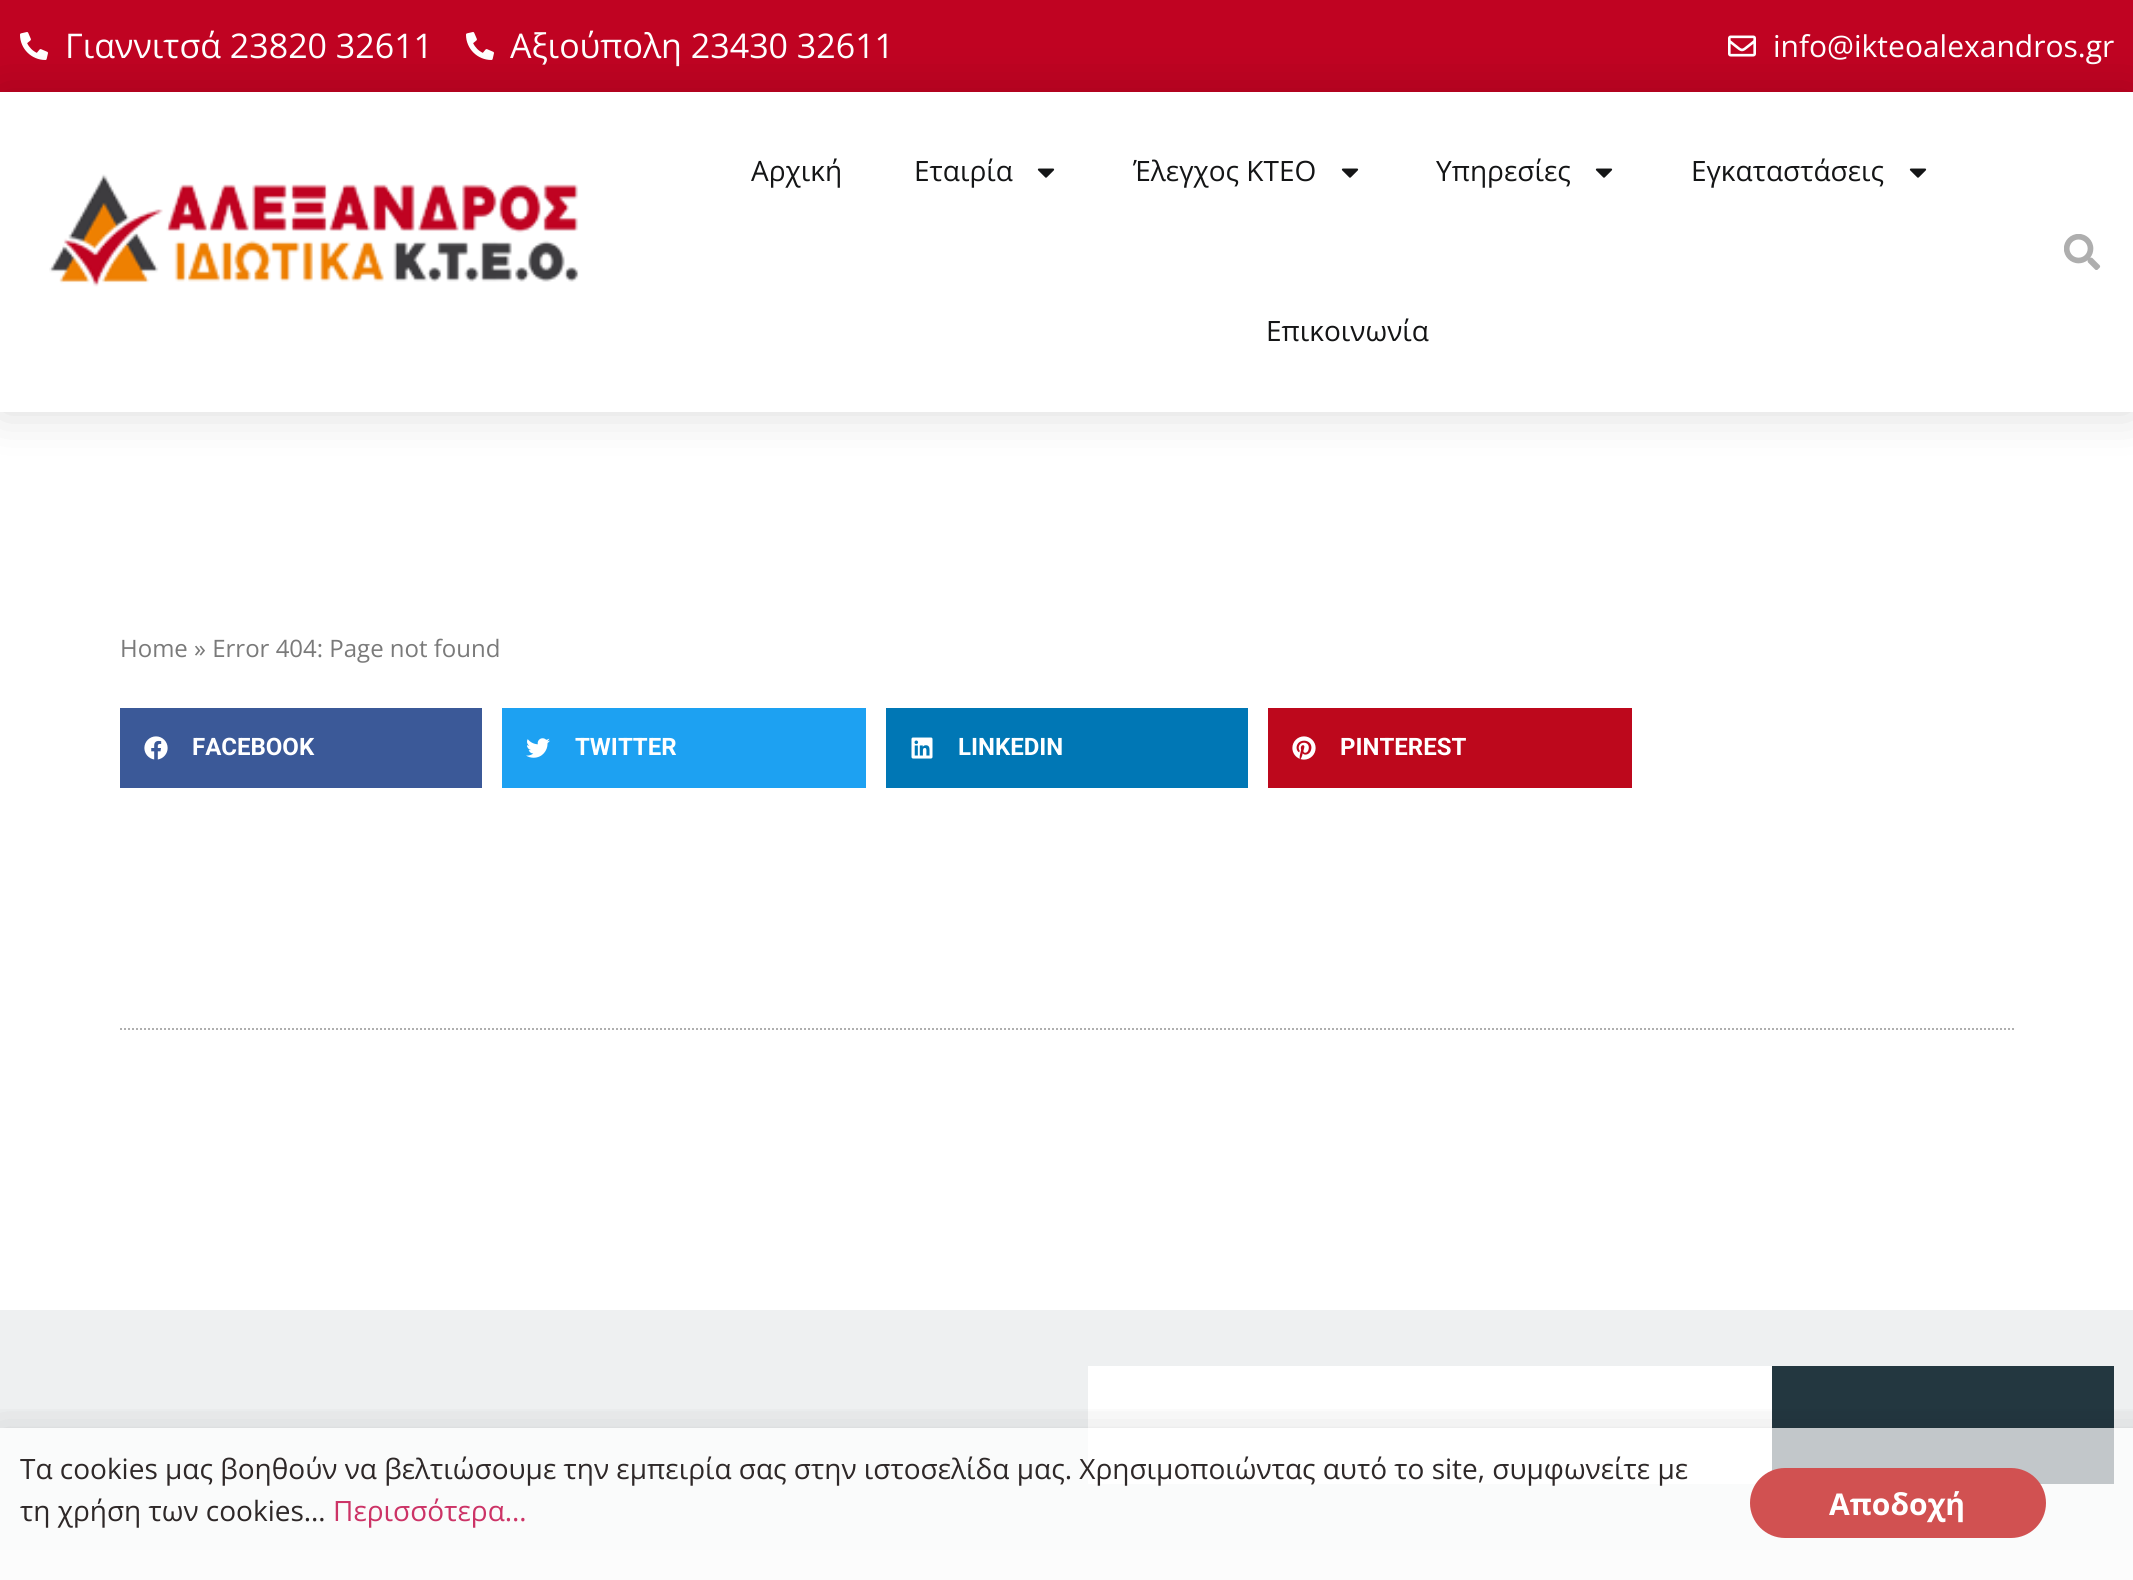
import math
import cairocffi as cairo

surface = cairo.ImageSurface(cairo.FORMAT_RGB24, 2133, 1580)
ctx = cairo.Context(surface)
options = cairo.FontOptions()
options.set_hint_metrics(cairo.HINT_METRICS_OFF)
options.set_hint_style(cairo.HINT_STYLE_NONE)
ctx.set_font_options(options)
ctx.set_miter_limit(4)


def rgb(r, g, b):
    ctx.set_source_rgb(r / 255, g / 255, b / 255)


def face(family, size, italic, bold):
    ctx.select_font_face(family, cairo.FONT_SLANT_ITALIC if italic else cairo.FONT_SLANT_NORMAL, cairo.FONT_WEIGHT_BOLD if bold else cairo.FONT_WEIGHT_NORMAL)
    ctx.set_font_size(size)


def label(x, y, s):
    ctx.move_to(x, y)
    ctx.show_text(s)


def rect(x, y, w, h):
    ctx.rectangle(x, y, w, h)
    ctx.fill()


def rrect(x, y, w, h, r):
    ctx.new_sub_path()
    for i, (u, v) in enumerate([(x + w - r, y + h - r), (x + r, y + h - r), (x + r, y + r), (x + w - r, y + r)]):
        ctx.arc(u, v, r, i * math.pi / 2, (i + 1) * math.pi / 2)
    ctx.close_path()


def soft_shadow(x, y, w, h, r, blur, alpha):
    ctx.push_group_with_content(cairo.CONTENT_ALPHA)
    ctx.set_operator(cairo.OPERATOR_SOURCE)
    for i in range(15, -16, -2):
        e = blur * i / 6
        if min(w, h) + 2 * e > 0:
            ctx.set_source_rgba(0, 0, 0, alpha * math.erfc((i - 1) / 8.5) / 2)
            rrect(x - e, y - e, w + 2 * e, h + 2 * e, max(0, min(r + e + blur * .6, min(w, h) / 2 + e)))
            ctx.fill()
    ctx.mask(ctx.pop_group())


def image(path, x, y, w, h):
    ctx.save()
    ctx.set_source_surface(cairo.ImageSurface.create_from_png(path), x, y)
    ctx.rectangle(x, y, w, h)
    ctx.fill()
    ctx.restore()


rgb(255, 255, 255)
ctx.paint()
rgb(192, 3, 34)
rect(0, 0, 2133, 92)
image('image0.png', 20, 32, 28, 28)
face('Open Sans', 34, 0, 0)
rgb(255, 255, 255)
label(65, 58, 'Γιαννιτσά 23820 32611')
image('image0.png', 466, 32, 28, 28)
label(510, 58, 'Αξιούπολη 23430 32611')
image('image1.png', 1728, 35, 28, 22)
face('Open Sans', 30, 0, 0)
label(1773, 57, 'info@ikteoalexandros.gr')
ctx.save()
ctx.set_fill_rule(cairo.FILL_RULE_EVEN_ODD)
ctx.new_path()
ctx.move_to(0, 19)
ctx.line_to(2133, 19)
ctx.line_to(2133, 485)
ctx.line_to(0, 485)
ctx.close_path()
ctx.move_to(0, 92)
ctx.line_to(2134, 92)
ctx.line_to(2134, 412)
ctx.line_to(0, 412)
ctx.close_path()
ctx.clip()
rgb(0, 0, 0)
soft_shadow(0, 92, 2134, 320, 0, 24, 0.15)
ctx.restore()
image('image2.png', 49, 174, 530, 113)
face('Open Sans', 28, 0, 0)
rgb(20, 21, 22)
label(751, 181, 'Αρχική')
label(914, 181, 'Εταιρία')
image('image3.png', 1037, 168, 18, 10)
label(1133, 181, 'Έλεγχος ΚΤΕΟ')
image('image3.png', 1341, 168, 18, 10)
label(1436, 181, 'Υπηρεσίες')
image('image3.png', 1595, 168, 18, 10)
label(1691, 181, 'Εγκαταστάσεις')
image('image3.png', 1909, 168, 18, 10)
label(1266, 341, 'Επικοινωνία')
image('image4.png', 2064, 234, 37, 36)
face('Open Sans', 24, 0, 0)
rgb(122, 122, 122)
label(120, 657, 'Home » Error 404: Page not found')
rgb(59, 89, 152)
rect(120, 708, 362, 80)
image('image5.png', 144, 736, 24, 24)
face('Roboto', 24, 0, 1)
rgb(255, 255, 255)
label(192, 755, 'FACEBOOK')
rgb(29, 161, 242)
rect(502, 708, 364, 80)
image('image6.png', 526, 738, 24, 20)
rgb(255, 255, 255)
label(575, 755, 'TWITTER')
rgb(0, 119, 181)
rect(886, 708, 362, 80)
image('image7.png', 911, 737, 22, 22)
rgb(255, 255, 255)
label(958, 755, 'LINKEDIN')
rgb(189, 8, 28)
rect(1268, 708, 364, 80)
image('image8.png', 1292, 736, 24, 24)
rgb(255, 255, 255)
label(1340, 755, 'PINTEREST')
ctx.new_path()
ctx.move_to(120, 1029)
ctx.line_to(2014, 1029)
rgb(175, 175, 175)
ctx.set_dash([2, 2])
ctx.stroke()
rgb(238, 240, 241)
rect(0, 1310, 2133, 240)
rgb(255, 255, 255)
rect(1088, 1366, 684, 118)
rgb(35, 55, 64)
rect(1772, 1366, 342, 118)
rgb(245, 245, 245)
rect(0, 1550, 2133, 30)
ctx.save()
ctx.rectangle(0, 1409, 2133, 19)
ctx.clip()
rgb(0, 0, 0)
soft_shadow(-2, 1438, 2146, 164, 0, 23, 0.2)
ctx.restore()
ctx.set_source_rgba(1, 1, 1, 0.72)
rect(0, 1428, 2133, 152)
face('Open Sans', 28, 0, 0)
rgb(46, 40, 40)
label(20, 1479, 'Τα cookies μας βοηθούν να βελτιώσουμε την εμπειρία σας στην ιστοσελίδα μας. Χρησιμοποιώντας αυτό το site, συμφωνείτε με')
label(20, 1521, 'τη χρήση των cookies…')
rgb(204, 51, 102)
label(333, 1521, 'Περισσότερα…')
rgb(209, 81, 81)
rrect(1750, 1468, 296, 70, 35)
ctx.fill()
face('Open Sans', 30, 0, 1)
rgb(255, 255, 255)
label(1829, 1515, 'Αποδοχή')
surface.write_to_png('render.png')
